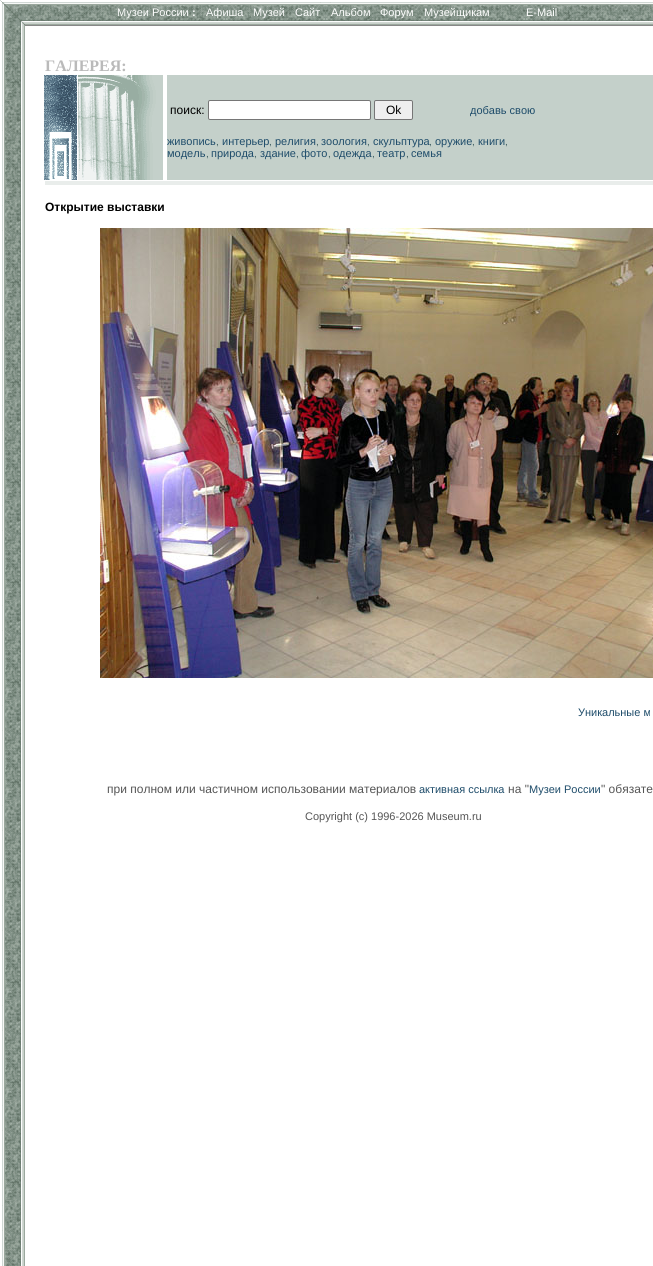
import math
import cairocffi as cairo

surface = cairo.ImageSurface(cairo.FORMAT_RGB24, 653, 1266)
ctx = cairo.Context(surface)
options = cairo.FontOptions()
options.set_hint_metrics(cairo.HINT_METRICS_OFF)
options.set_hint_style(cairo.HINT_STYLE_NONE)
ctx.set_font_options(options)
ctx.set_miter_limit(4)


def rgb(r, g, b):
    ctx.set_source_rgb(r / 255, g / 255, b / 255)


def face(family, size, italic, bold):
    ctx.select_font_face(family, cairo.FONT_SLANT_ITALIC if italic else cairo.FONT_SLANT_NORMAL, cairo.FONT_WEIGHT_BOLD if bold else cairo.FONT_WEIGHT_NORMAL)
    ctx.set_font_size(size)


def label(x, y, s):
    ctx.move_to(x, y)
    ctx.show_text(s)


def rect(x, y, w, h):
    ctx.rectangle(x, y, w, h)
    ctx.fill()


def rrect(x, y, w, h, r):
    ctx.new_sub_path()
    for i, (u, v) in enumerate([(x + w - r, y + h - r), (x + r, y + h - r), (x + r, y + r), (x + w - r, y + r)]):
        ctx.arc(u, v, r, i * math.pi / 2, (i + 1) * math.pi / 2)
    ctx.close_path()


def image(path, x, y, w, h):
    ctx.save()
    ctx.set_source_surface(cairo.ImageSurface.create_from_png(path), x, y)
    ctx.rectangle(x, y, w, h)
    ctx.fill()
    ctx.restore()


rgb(255, 255, 255)
ctx.paint()
image('image0.png', 2, 25, 23, 1241)
image('image1.png', 0, 0, 25, 25)
image('image2.png', 25, 0, 628, 25)
face('Liberation Sans', 11, 0, 0)
rgb(255, 255, 255)
label(117, 16, 'Музеи России')
face('Liberation Sans', 11, 0, 1)
label(192, 16, ':')
face('Liberation Sans', 11, 0, 0)
label(206, 16, 'Афиша')
label(253, 16, 'Музей')
label(295, 16, 'Сайт')
label(331, 16, 'Альбом')
label(380, 16, 'Форум')
label(424, 16, 'Музейщикам')
label(526, 16, 'E-Mail')
rgb(136, 136, 136)
rect(25, 25, 628, 1)
face('Liberation Serif', 16, 0, 1)
rgb(186, 186, 186)
label(45, 71, 'ГАЛЕРЕЯ:')
image('image3.png', 44, 75, 33, 105)
image('image4.png', 78, 75, 85, 105)
rgb(196, 208, 202)
rect(167, 75, 486, 105)
face('Liberation Sans', 12, 0, 0)
rgb(0, 0, 0)
label(170, 114, 'поиск:')
rgb(255, 255, 255)
rrect(208.5, 100.5, 162, 19, 1.5)
ctx.fill_preserve()
rgb(118, 118, 118)
ctx.set_line_width(1)
ctx.stroke()
rgb(239, 239, 239)
rrect(374.5, 100.5, 38, 19, 1.5)
ctx.fill_preserve()
rgb(118, 118, 118)
ctx.stroke()
rgb(0, 0, 0)
label(386, 114, 'Ok')
face('Liberation Sans', 11, 0, 0)
rgb(30, 76, 106)
label(470, 114, 'добавь свою')
label(167, 145, 'живопись')
face('Liberation Sans', 10, 0, 0)
rgb(57, 89, 92)
label(216, 145, ',')
face('Liberation Sans', 11, 0, 0)
rgb(30, 76, 106)
label(222, 145, 'интерьер')
face('Liberation Sans', 10, 0, 0)
rgb(57, 89, 92)
label(269, 145, ',')
face('Liberation Sans', 11, 0, 0)
rgb(30, 76, 106)
label(275, 145, 'религия')
face('Liberation Sans', 10, 0, 0)
rgb(57, 89, 92)
label(316, 145, ',')
face('Liberation Sans', 11, 0, 0)
rgb(30, 76, 106)
label(321, 145, 'зоология')
face('Liberation Sans', 10, 0, 0)
rgb(57, 89, 92)
label(367, 145, ',')
face('Liberation Sans', 11, 0, 0)
rgb(30, 76, 106)
label(373, 145, 'скульптура')
face('Liberation Sans', 10, 0, 0)
rgb(57, 89, 92)
label(429, 145, ',')
face('Liberation Sans', 11, 0, 0)
rgb(30, 76, 106)
label(435, 145, 'оружие')
face('Liberation Sans', 10, 0, 0)
rgb(57, 89, 92)
label(472, 145, ',')
face('Liberation Sans', 11, 0, 0)
rgb(30, 76, 106)
label(478, 145, 'книги')
face('Liberation Sans', 10, 0, 0)
rgb(57, 89, 92)
label(505, 145, ',')
face('Liberation Sans', 11, 0, 0)
rgb(30, 76, 106)
label(167, 157, 'модель')
face('Liberation Sans', 10, 0, 0)
rgb(57, 89, 92)
label(206, 157, ',')
face('Liberation Sans', 11, 0, 0)
rgb(30, 76, 106)
label(211, 157, 'природа')
face('Liberation Sans', 10, 0, 0)
rgb(57, 89, 92)
label(254, 157, ',')
face('Liberation Sans', 11, 0, 0)
rgb(30, 76, 106)
label(260, 157, 'здание')
face('Liberation Sans', 10, 0, 0)
rgb(57, 89, 92)
label(296, 157, ',')
face('Liberation Sans', 11, 0, 0)
rgb(30, 76, 106)
label(301, 157, 'фото')
face('Liberation Sans', 10, 0, 0)
rgb(57, 89, 92)
label(328, 157, ',')
face('Liberation Sans', 11, 0, 0)
rgb(30, 76, 106)
label(333, 157, 'одежда')
face('Liberation Sans', 10, 0, 0)
rgb(57, 89, 92)
label(372, 157, ',')
face('Liberation Sans', 11, 0, 0)
rgb(30, 76, 106)
label(377, 157, 'театр')
face('Liberation Sans', 10, 0, 0)
rgb(57, 89, 92)
label(406, 157, ',')
face('Liberation Sans', 11, 0, 0)
rgb(30, 76, 106)
label(411, 157, 'семья')
rgb(233, 237, 235)
rect(45, 181, 608, 4)
face('Liberation Sans', 12, 0, 1)
rgb(0, 0, 0)
label(45, 211, 'Открытие выставки')
image('image5.png', 100, 228, 553, 450)
face('Liberation Sans', 11, 0, 0)
rgb(30, 76, 106)
label(578, 716, 'Уникальные м')
face('Liberation Sans', 12, 0, 0)
rgb(85, 85, 85)
label(107, 793, 'при полном или частичном использовании материалов')
face('Liberation Sans', 11, 0, 0)
rgb(30, 76, 106)
label(419, 793, 'активная ссылка')
face('Liberation Sans', 12, 0, 0)
rgb(85, 85, 85)
label(508, 793, 'на "')
face('Liberation Sans', 11, 0, 0)
rgb(30, 76, 106)
label(529, 793, 'Музеи России')
face('Liberation Sans', 12, 0, 0)
rgb(85, 85, 85)
label(601, 793, '" обязате')
face('Liberation Sans', 11, 0, 0)
label(305, 820, 'Copyright (c) 1996-2026 Museum.ru')
surface.write_to_png('render.png')
